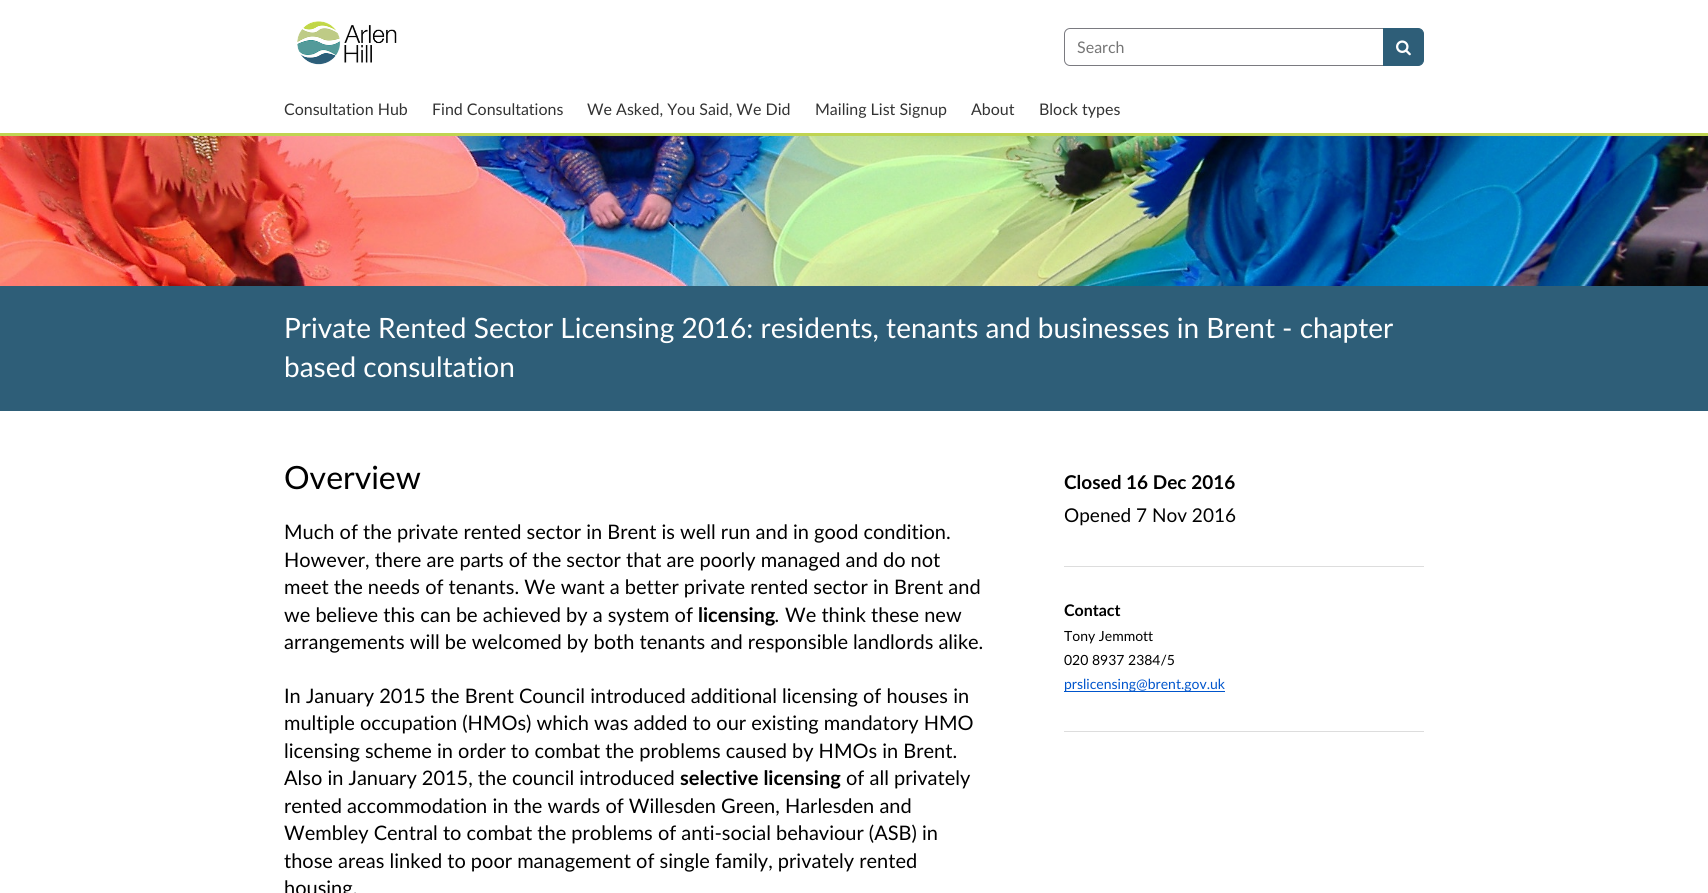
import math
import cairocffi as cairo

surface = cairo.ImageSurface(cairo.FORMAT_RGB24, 1708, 893)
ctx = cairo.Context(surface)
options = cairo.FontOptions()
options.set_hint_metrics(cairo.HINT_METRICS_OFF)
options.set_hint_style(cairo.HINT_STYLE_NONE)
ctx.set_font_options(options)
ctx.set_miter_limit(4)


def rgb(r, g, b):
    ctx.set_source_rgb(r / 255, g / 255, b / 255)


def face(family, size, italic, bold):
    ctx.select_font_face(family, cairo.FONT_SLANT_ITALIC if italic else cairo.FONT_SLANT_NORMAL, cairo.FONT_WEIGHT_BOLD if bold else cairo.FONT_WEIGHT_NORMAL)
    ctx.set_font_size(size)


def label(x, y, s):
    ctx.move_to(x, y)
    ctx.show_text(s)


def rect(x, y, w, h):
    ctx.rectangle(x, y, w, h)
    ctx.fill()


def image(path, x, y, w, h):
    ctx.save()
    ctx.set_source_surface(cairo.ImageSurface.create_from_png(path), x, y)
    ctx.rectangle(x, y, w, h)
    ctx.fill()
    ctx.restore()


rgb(255, 255, 255)
ctx.paint()
rgb(192, 212, 82)
rect(0, 133, 1708, 3)
image('image0.png', 297, 21, 100, 44)
ctx.new_path()
ctx.move_to(1070, 28.5)
ctx.line_to(1383.5, 28.5)
ctx.line_to(1383.5, 65.5)
ctx.line_to(1070, 65.5)
ctx.curve_to(1067, 65.5, 1064.5, 63, 1064.5, 60)
ctx.line_to(1064.5, 34)
ctx.curve_to(1064.5, 31, 1067, 28.5, 1070, 28.5)
ctx.close_path()
rgb(122, 122, 128)
ctx.set_line_width(1)
ctx.stroke()
face('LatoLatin', 16, 0, 0)
rgb(118, 118, 118)
label(1077, 53, 'Search')
rgb(46, 94, 120)
ctx.new_path()
ctx.move_to(1383.5, 28.5)
ctx.line_to(1418, 28.5)
ctx.curve_to(1421, 28.5, 1423.5, 31, 1423.5, 34)
ctx.line_to(1423.5, 60)
ctx.curve_to(1423.5, 63, 1421, 65.5, 1418, 65.5)
ctx.line_to(1383.5, 65.5)
ctx.close_path()
ctx.fill_preserve()
ctx.stroke()
image('image1.png', 1396, 40, 15, 16)
rgb(51, 51, 51)
label(284, 115, 'Consultation Hub')
label(432, 115, 'Find Consultations')
label(587, 115, 'We Asked, You Said, We Did')
label(815, 115, 'Mailing List Signup')
label(971, 115, 'About')
label(1039, 115, 'Block types')
image('image2.png', 0, 136, 1708, 150)
rgb(46, 94, 120)
rect(0, 286, 1708, 125)
face('LatoLatin', 28, 0, 0)
rgb(255, 255, 255)
label(284, 338, 'Private Rented Sector Licensing 2016: residents, tenants and businesses in Brent - chapter')
label(284, 377, 'based consultation')
face('LatoLatin', 32, 0, 0)
rgb(0, 0, 0)
label(284, 489, 'Overview')
face('LatoLatin', 20, 0, 0)
label(284, 539, 'Much of the private rented sector in Brent is well run and in good condition.')
label(284, 567, 'However, there are parts of the sector that are poorly managed and do not')
label(284, 594, 'meet the needs of tenants. We want a better private rented sector in Brent and')
label(284, 622, 'we believe this can be achieved by a system of')
face('LatoLatin', 20, 0, 1)
label(698, 622, 'licensing')
face('LatoLatin', 20, 1, 0)
label(775, 622, '.')
face('LatoLatin', 20, 0, 0)
label(785, 622, 'We think these new')
label(284, 649, 'arrangements will be welcomed by both tenants and responsible landlords alike.')
label(284, 703, 'In January 2015 the Brent Council introduced additional licensing of houses in')
label(284, 730, 'multiple occupation (HMOs) which was added to our existing mandatory HMO')
label(284, 758, 'licensing scheme in order to combat the problems caused by HMOs in Brent.')
label(284, 785, 'Also in January 2015, the council introduced')
face('LatoLatin', 20, 0, 1)
label(680, 785, 'selective licensing')
face('LatoLatin', 20, 0, 0)
label(846, 785, 'of all privately')
label(284, 813, 'rented accommodation in the wards of Willesden Green, Harlesden and')
label(284, 840, 'Wembley Central to combat the problems of anti-social behaviour (ASB) in')
label(284, 868, 'those areas linked to poor management of single family, privately rented')
label(284, 895, 'housing.')
rgb(221, 221, 221)
rect(1064, 566, 360, 1)
face('LatoLatin', 19, 0, 1)
rgb(0, 0, 0)
label(1064, 489, 'Closed 16 Dec 2016')
face('LatoLatin', 19, 0, 0)
label(1064, 522, 'Opened 7 Nov 2016')
rgb(221, 221, 221)
rect(1064, 731, 360, 1)
face('LatoLatin', 16, 0, 1)
rgb(0, 0, 0)
label(1064, 616, 'Contact')
face('LatoLatin', 14, 0, 0)
label(1064, 641, 'Tony Jemmott')
label(1064, 665, '020 8937 2384/5')
rgb(0, 85, 204)
rect(1064, 691, 161, 1)
label(1064, 689, 'prslicensing@brent.gov.uk')
surface.write_to_png('render.png')
